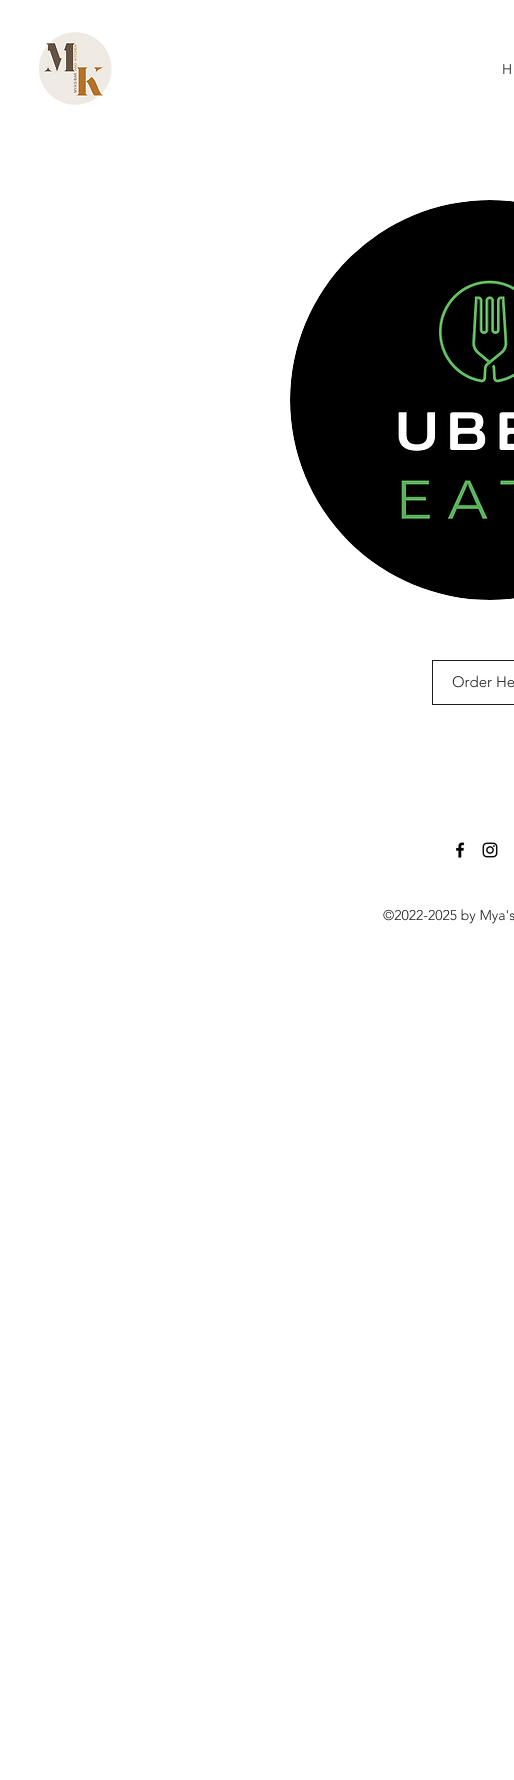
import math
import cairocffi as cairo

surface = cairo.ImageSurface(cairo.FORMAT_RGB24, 514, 1780)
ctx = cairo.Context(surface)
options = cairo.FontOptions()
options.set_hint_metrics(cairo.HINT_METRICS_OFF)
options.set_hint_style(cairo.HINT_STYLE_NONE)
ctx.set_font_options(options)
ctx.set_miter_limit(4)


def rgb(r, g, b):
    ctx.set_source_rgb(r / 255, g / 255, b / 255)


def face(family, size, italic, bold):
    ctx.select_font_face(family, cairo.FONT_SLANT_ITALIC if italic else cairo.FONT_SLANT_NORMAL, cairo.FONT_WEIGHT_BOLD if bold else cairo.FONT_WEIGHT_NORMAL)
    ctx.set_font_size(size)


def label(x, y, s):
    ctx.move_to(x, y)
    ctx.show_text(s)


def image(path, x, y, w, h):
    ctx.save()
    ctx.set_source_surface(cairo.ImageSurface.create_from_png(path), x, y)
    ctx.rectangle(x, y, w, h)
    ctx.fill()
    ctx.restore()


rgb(255, 255, 255)
ctx.paint()
image('image0.png', 39, 32, 73, 73)
face('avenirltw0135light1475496 Light', 14, 0, 0)
rgb(32, 28, 29)
label(502, 74, 'H')
image('image1.png', 290, 200, 224, 400)
ctx.rectangle(432.5, 660.5, 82, 44)
ctx.set_line_width(1)
ctx.stroke()
face('avenirltw0135light1475496 Light', 15, 0, 0)
label(452, 687, 'Order He')
image('image2.png', 456, 842, 9, 16)
image('image3.png', 482, 842, 16, 16)
face('avenirltw0135light1475496 Light', 14, 0, 0)
label(383, 920, '©2022-2025 by Mya\'s')
surface.write_to_png('render.png')
